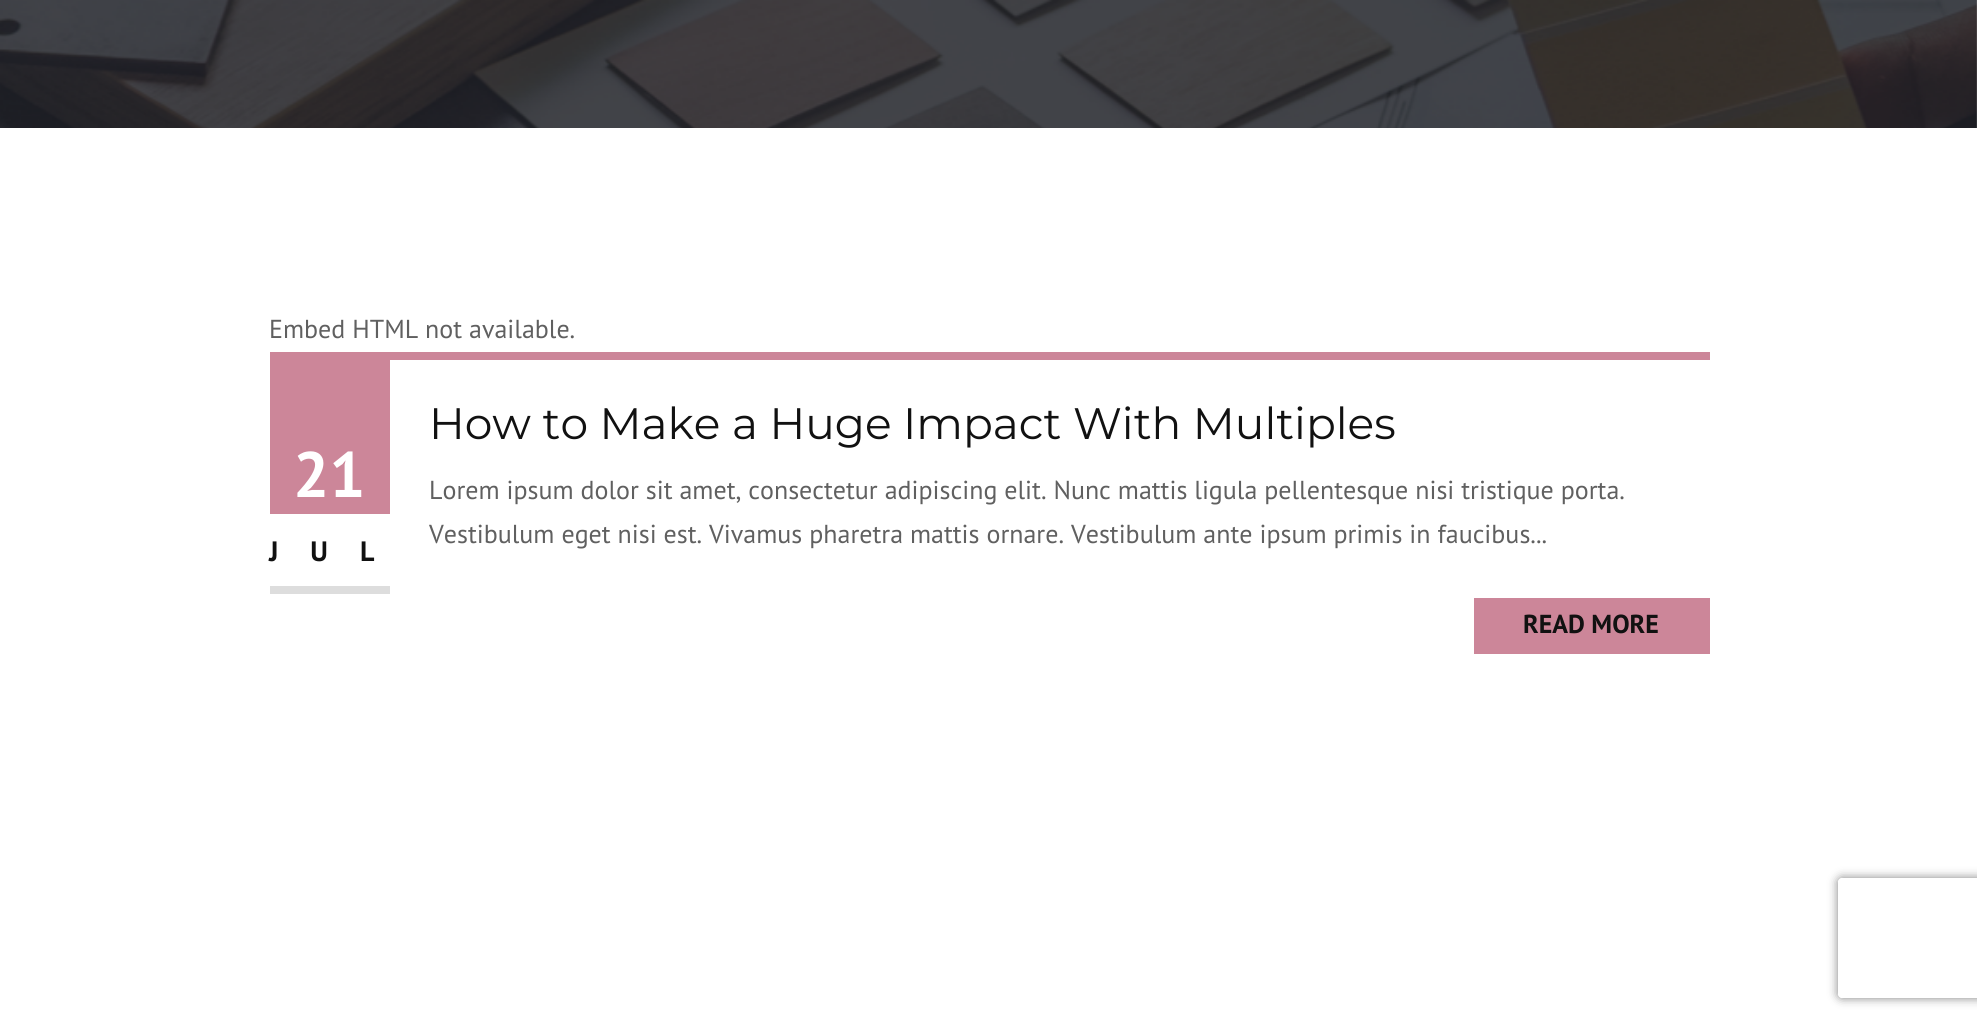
import math
import cairocffi as cairo

surface = cairo.ImageSurface(cairo.FORMAT_RGB24, 1977, 1026)
ctx = cairo.Context(surface)
options = cairo.FontOptions()
options.set_hint_metrics(cairo.HINT_METRICS_OFF)
options.set_hint_style(cairo.HINT_STYLE_NONE)
ctx.set_font_options(options)
ctx.set_miter_limit(4)


def rgb(r, g, b):
    ctx.set_source_rgb(r / 255, g / 255, b / 255)


def face(family, size, italic, bold):
    ctx.select_font_face(family, cairo.FONT_SLANT_ITALIC if italic else cairo.FONT_SLANT_NORMAL, cairo.FONT_WEIGHT_BOLD if bold else cairo.FONT_WEIGHT_NORMAL)
    ctx.set_font_size(size)


def label(x, y, s):
    ctx.move_to(x, y)
    ctx.show_text(s)


def tracked(x, y, s, letter, word):
    ctx.move_to(x, y)
    for ch in s:
        ctx.show_text(ch)
        ctx.rel_move_to(letter + word * (ch == ' '), 0)


def rect(x, y, w, h):
    ctx.rectangle(x, y, w, h)
    ctx.fill()


def rrect(x, y, w, h, r):
    ctx.new_sub_path()
    for i, (u, v) in enumerate([(x + w - r, y + h - r), (x + r, y + h - r), (x + r, y + r), (x + w - r, y + r)]):
        ctx.arc(u, v, r, i * math.pi / 2, (i + 1) * math.pi / 2)
    ctx.close_path()


def soft_shadow(x, y, w, h, r, blur, alpha):
    ctx.push_group_with_content(cairo.CONTENT_ALPHA)
    ctx.set_operator(cairo.OPERATOR_SOURCE)
    for i in range(15, -16, -2):
        e = blur * i / 6
        if min(w, h) + 2 * e > 0:
            ctx.set_source_rgba(0, 0, 0, alpha * math.erfc((i - 1) / 8.5) / 2)
            rrect(x - e, y - e, w + 2 * e, h + 2 * e, max(0, min(r + e + blur * .6, min(w, h) / 2 + e)))
            ctx.fill()
    ctx.mask(ctx.pop_group())


def image(path, x, y, w, h):
    ctx.save()
    ctx.set_source_surface(cairo.ImageSurface.create_from_png(path), x, y)
    ctx.rectangle(x, y, w, h)
    ctx.fill()
    ctx.restore()


rgb(255, 255, 255)
ctx.paint()
image('image0.png', 0, 0, 1977, 128)
rgb(204, 134, 153)
rect(270, 352, 1440, 8)
face('PT Sans', 26, 0, 0)
rgb(96, 96, 96)
label(269, 338, 'Embed HTML not available.')
rgb(204, 134, 153)
rect(270, 360, 120, 154)
face('PT Sans', 64, 0, 1)
rgb(255, 255, 255)
label(293, 497, '21')
rgb(221, 221, 221)
rect(270, 586, 120, 8)
face('PT Sans', 28, 0, 1)
rgb(17, 17, 17)
tracked(269, 561, 'JUL', 32, 0)
face('Montserrat', 44, 0, 0)
label(429, 439, 'How to Make a Huge Impact With Multiples')
face('PT Sans', 26, 0, 0)
rgb(96, 96, 96)
label(429, 499, 'Lorem ipsum dolor sit amet, consectetur adipiscing elit. Nunc mattis ligula pellentesque nisi tristique porta.')
label(429, 543, 'Vestibulum eget nisi est. Vivamus pharetra mattis ornare. Vestibulum ante ipsum primis in faucibus...')
rgb(204, 134, 153)
rect(1474, 598, 236, 56)
face('PT Sans', 26, 0, 1)
rgb(17, 17, 17)
label(1523, 633, 'READ MORE')
ctx.save()
ctx.set_fill_rule(cairo.FILL_RULE_EVEN_ODD)
ctx.new_path()
ctx.move_to(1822, 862)
ctx.line_to(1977, 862)
ctx.line_to(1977, 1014)
ctx.line_to(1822, 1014)
ctx.close_path()
ctx.move_to(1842, 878)
ctx.line_to(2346, 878)
ctx.curve_to(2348, 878, 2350, 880, 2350, 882)
ctx.line_to(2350, 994)
ctx.curve_to(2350, 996, 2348, 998, 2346, 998)
ctx.line_to(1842, 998)
ctx.curve_to(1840, 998, 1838, 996, 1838, 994)
ctx.line_to(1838, 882)
ctx.curve_to(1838, 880, 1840, 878, 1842, 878)
ctx.close_path()
ctx.clip()
rgb(128, 128, 128)
soft_shadow(1838, 878, 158, 120, 4, 5, 1)
ctx.restore()
surface.write_to_png('render.png')
